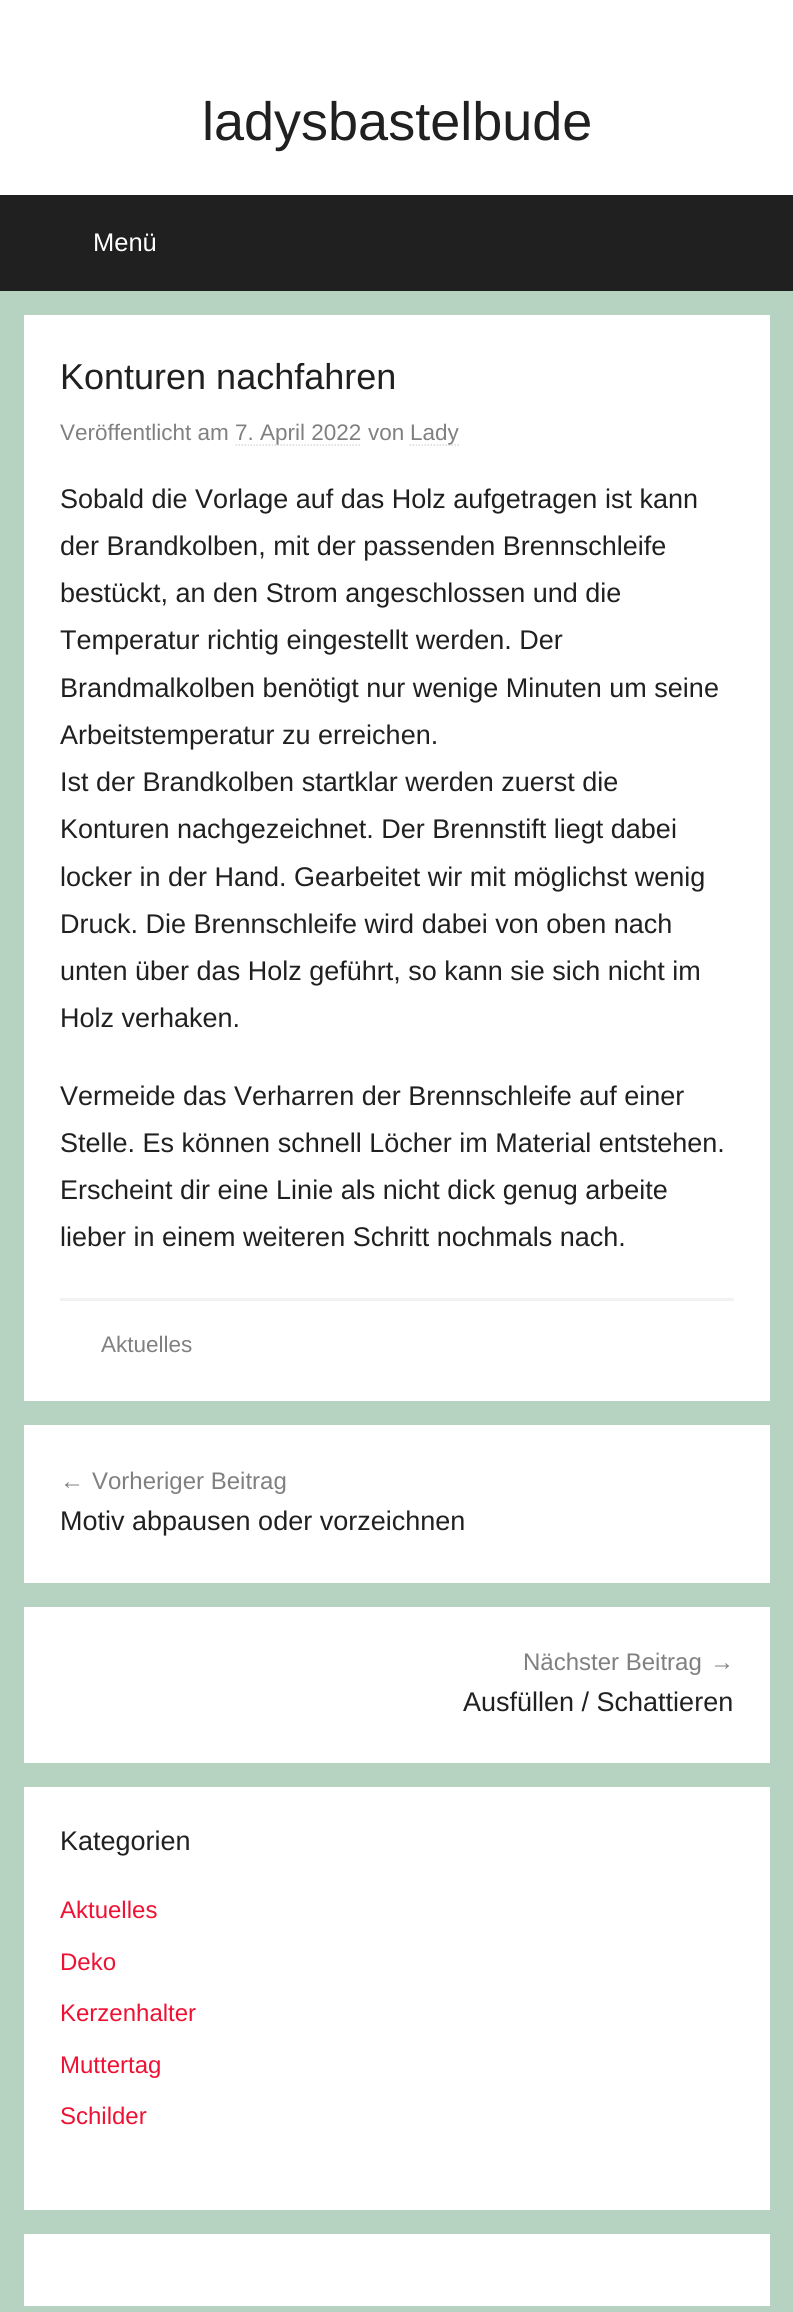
import math
import cairocffi as cairo

surface = cairo.ImageSurface(cairo.FORMAT_RGB24, 793, 2312)
ctx = cairo.Context(surface)
options = cairo.FontOptions()
options.set_hint_metrics(cairo.HINT_METRICS_OFF)
options.set_hint_style(cairo.HINT_STYLE_NONE)
ctx.set_font_options(options)
ctx.set_miter_limit(4)


def rgb(r, g, b):
    ctx.set_source_rgb(r / 255, g / 255, b / 255)


def face(family, size, italic, bold):
    ctx.select_font_face(family, cairo.FONT_SLANT_ITALIC if italic else cairo.FONT_SLANT_NORMAL, cairo.FONT_WEIGHT_BOLD if bold else cairo.FONT_WEIGHT_NORMAL)
    ctx.set_font_size(size)


def label(x, y, s):
    ctx.move_to(x, y)
    ctx.show_text(s)


def rect(x, y, w, h):
    ctx.rectangle(x, y, w, h)
    ctx.fill()


rgb(182, 211, 193)
ctx.paint()
rgb(255, 255, 255)
rect(0, 0, 793, 195)
face('Liberation Sans', 54, 0, 0)
rgb(32, 32, 32)
label(202, 140, 'ladysbastelbude')
rect(0, 195, 793, 96)
face('Liberation Sans', 25.5, 0, 0)
rgb(255, 255, 255)
label(93, 251, 'Menü')
rect(24, 315, 746, 1086)
face('Liberation Sans', 36, 0, 0)
rgb(32, 32, 32)
label(60, 389, 'Konturen nachfahren')
face('Liberation Sans', 22.5, 0, 0)
rgb(128, 128, 128)
label(60, 440, 'Veröffentlicht am')
ctx.new_path()
ctx.move_to(235.5, 445)
ctx.line_to(361.5, 445)
rgb(217, 217, 217)
ctx.set_line_width(1.5)
ctx.set_dash([1.5, 1.5])
ctx.stroke()
rgb(128, 128, 128)
label(235, 440, '7. April 2022')
label(368, 440, 'von')
ctx.new_path()
ctx.move_to(409.5, 445)
ctx.line_to(459, 445)
rgb(217, 217, 217)
ctx.stroke()
rgb(128, 128, 128)
label(410, 440, 'Lady')
face('Liberation Sans', 27, 0, 0)
rgb(32, 32, 32)
label(60, 508, 'Sobald die Vorlage auf das Holz aufgetragen ist kann')
label(60, 555, 'der Brandkolben, mit der passenden Brennschleife')
label(60, 602, 'bestückt, an den Strom angeschlossen und die')
label(60, 649, 'Temperatur richtig eingestellt werden. Der')
label(60, 697, 'Brandmalkolben benötigt nur wenige Minuten um seine')
label(60, 744, 'Arbeitstemperatur zu erreichen.')
label(60, 791, 'Ist der Brandkolben startklar werden zuerst die')
label(60, 838, 'Konturen nachgezeichnet. Der Brennstift liegt dabei')
label(60, 886, 'locker in der Hand. Gearbeitet wir mit möglichst wenig')
label(60, 933, 'Druck. Die Brennschleife wird dabei von oben nach')
label(60, 980, 'unten über das Holz geführt, so kann sie sich nicht im')
label(60, 1027, 'Holz verhaken.')
label(60, 1105, 'Vermeide das Verharren der Brennschleife auf einer')
label(60, 1152, 'Stelle. Es können schnell Löcher im Material entstehen.')
label(60, 1199, 'Erscheint dir eine Linie als nicht dick genug arbeite')
label(60, 1246, 'lieber in einem weiteren Schritt nochmals nach.')
rgb(242, 242, 242)
rect(60, 1298, 674, 3)
face('Liberation Sans', 22.5, 0, 0)
rgb(128, 128, 128)
label(101, 1352, 'Aktuelles')
rgb(255, 255, 255)
rect(24, 1425, 746, 158)
face('Liberation Sans', 24, 0, 0)
rgb(128, 128, 128)
label(60, 1489, '←')
label(92, 1489, 'Vorheriger Beitrag')
face('Liberation Sans', 27, 0, 0)
rgb(32, 32, 32)
label(60, 1530, 'Motiv abpausen oder vorzeichnen')
rgb(255, 255, 255)
rect(24, 1607, 746, 156)
face('Liberation Sans', 24, 0, 0)
rgb(128, 128, 128)
label(523, 1670, 'Nächster Beitrag')
label(710, 1670, '→')
face('Liberation Sans', 27, 0, 0)
rgb(32, 32, 32)
label(463, 1711, 'Ausfüllen / Schattieren')
rgb(255, 255, 255)
rect(24, 1787, 746, 423)
rgb(32, 32, 32)
label(60, 1850, 'Kategorien')
face('Liberation Sans', 24, 0, 0)
rgb(238, 17, 51)
label(60, 1918, 'Aktuelles')
label(60, 1970, 'Deko')
label(60, 2021, 'Kerzenhalter')
label(60, 2073, 'Muttertag')
label(60, 2124, 'Schilder')
rgb(255, 255, 255)
rect(24, 2234, 746, 72)
surface.write_to_png('render.png')
